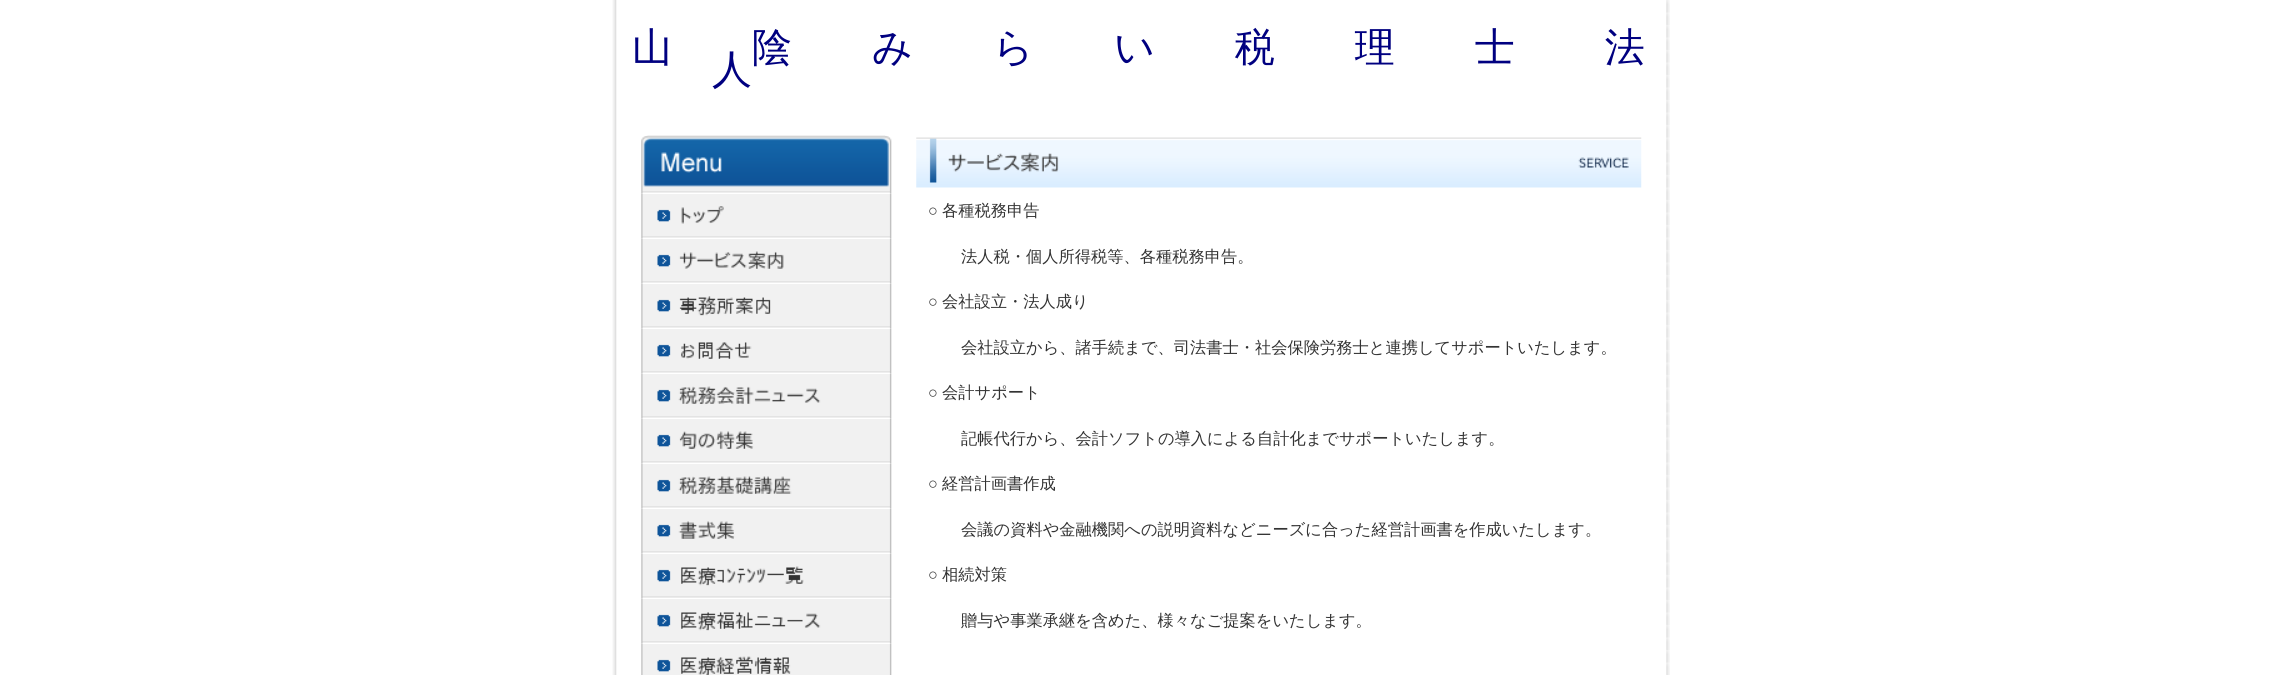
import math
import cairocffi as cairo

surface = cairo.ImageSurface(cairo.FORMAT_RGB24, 2281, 675)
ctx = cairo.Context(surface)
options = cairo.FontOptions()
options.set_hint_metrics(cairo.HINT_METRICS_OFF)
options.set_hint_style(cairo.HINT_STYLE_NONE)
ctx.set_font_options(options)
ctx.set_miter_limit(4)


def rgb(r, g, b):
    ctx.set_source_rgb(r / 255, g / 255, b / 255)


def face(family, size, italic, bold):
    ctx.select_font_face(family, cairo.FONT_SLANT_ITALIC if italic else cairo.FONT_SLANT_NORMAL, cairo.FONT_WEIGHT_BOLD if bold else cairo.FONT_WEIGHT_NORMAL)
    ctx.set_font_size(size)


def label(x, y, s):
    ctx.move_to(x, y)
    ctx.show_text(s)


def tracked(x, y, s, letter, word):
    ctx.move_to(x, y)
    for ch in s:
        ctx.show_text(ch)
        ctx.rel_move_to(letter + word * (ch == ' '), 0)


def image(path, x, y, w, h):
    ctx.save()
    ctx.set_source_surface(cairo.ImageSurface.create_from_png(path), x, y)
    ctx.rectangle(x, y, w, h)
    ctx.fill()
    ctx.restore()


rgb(255, 255, 255)
ctx.paint()
image('image0.png', 612, 0, 1058, 675)
face('WenQuanYi Zen Hei Medium', 40, 0, 0)
rgb(0, 0, 128)
tracked(632, 61, '山　　陰　　み　　ら　　い　　税　　理　　士 　　法', 0, -2)
label(712, 83, '人')
image('image1.png', 641, 135, 251, 59)
image('image2.png', 641, 194, 251, 45)
image('image3.png', 641, 239, 251, 45)
image('image4.png', 641, 284, 251, 45)
image('image5.png', 641, 329, 251, 45)
image('image6.png', 641, 374, 251, 45)
image('image7.png', 641, 419, 251, 45)
image('image8.png', 641, 464, 251, 45)
image('image9.png', 641, 509, 251, 45)
image('image10.png', 641, 554, 251, 45)
image('image11.png', 641, 599, 251, 45)
image('image12.png', 641, 644, 251, 31)
image('image13.png', 916, 137, 726, 51)
face('Liberation Serif', 16.25, 0, 0)
rgb(51, 51, 51)
label(928, 216, '○')
face('WenQuanYi Zen Hei Medium', 16.25, 0, 0)
label(942, 216, '各種税務申告')
label(961, 262, '法人税・個人所得税等、各種税務申告。')
face('Liberation Serif', 16.25, 0, 0)
label(928, 307, '○')
face('WenQuanYi Zen Hei Medium', 16.25, 0, 0)
label(942, 307, '会社設立・法人成り')
label(961, 353, '会社設立から、諸手続まで、司法書士・社会保険労務士と連携してサポートいたします。')
face('Liberation Serif', 16.25, 0, 0)
label(928, 398, '○')
face('WenQuanYi Zen Hei Medium', 16.25, 0, 0)
label(942, 398, '会計サポート')
label(961, 444, '記帳代行から、会計ソフトの導入による自計化までサポートいたします。')
face('Liberation Serif', 16.25, 0, 0)
label(928, 489, '○')
face('WenQuanYi Zen Hei Medium', 16.25, 0, 0)
label(942, 489, '経営計画書作成')
label(961, 535, '会議の資料や金融機関への説明資料などニーズに合った経営計画書を作成いたします。')
face('Liberation Serif', 16.25, 0, 0)
label(928, 580, '○')
face('WenQuanYi Zen Hei Medium', 16.25, 0, 0)
label(942, 580, '相続対策')
label(961, 626, '贈与や事業承継を含めた、様々なご提案をいたします。')
surface.write_to_png('render.png')
